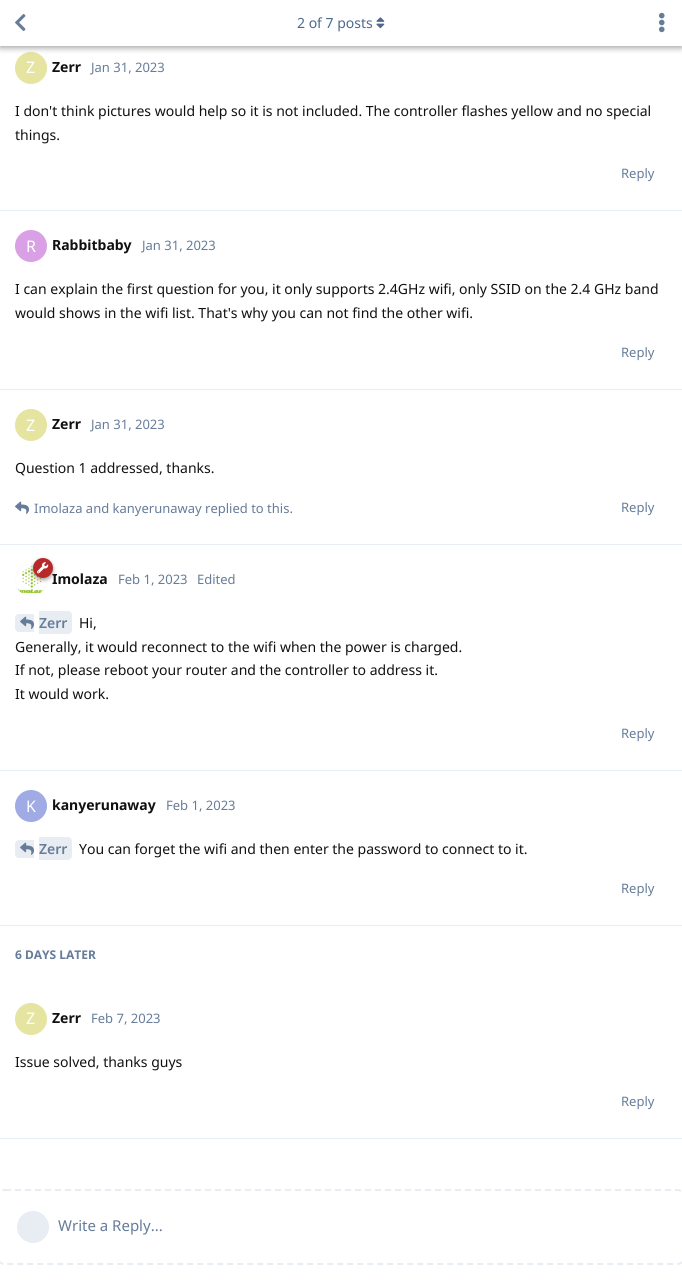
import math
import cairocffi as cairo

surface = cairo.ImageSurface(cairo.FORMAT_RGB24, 682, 1287)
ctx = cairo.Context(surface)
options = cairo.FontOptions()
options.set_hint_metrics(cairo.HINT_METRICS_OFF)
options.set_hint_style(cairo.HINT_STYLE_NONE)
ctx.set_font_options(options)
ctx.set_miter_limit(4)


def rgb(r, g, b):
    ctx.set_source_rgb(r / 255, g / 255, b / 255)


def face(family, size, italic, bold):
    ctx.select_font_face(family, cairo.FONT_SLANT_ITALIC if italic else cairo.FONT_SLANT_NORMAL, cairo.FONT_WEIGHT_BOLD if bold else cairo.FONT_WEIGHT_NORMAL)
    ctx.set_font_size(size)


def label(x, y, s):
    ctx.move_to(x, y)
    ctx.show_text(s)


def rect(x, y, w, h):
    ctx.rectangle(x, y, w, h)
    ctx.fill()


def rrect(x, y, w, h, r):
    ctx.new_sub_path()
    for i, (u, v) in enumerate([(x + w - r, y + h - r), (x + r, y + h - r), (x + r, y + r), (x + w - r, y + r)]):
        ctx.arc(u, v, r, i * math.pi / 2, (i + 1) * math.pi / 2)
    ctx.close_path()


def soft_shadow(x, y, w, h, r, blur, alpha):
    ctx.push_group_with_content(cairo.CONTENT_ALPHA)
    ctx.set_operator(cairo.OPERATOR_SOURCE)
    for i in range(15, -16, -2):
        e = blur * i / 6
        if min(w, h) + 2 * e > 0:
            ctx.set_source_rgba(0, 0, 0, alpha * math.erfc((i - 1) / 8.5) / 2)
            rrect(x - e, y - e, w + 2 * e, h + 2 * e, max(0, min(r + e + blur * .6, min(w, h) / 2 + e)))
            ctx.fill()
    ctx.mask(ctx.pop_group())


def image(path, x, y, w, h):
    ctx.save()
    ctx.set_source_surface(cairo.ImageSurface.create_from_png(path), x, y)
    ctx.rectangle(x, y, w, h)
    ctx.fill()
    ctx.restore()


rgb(255, 255, 255)
ctx.paint()
rgb(229, 228, 160)
ctx.arc(31, 68, 16, 0, 2 * math.pi)
ctx.fill()
rgb(0, 0, 0)
soft_shadow(0, 2, 682, 46, 0, 3, 0.35)
rgb(255, 255, 255)
rect(0, 0, 682, 46)
image('image0.png', 15, 14, 11, 17)
face('Noto Sans', 14, 0, 0)
rgb(77, 105, 142)
label(297, 28, '2 of 7 posts')
image('image1.png', 376, 17, 9, 12)
image('image2.png', 659, 12, 6, 21)
rgb(232, 236, 243)
rect(0, 210, 682, 1)
face('Noto Sans', 16, 0, 0)
rgb(255, 255, 255)
label(26, 73, 'Z')
face('Noto Sans', 14, 0, 1)
rgb(17, 17, 17)
label(52, 72, 'Zerr')
face('Noto Sans', 13, 0, 0)
rgb(102, 124, 153)
label(91, 72, 'Jan 31, 2023')
face('Noto Sans', 14, 0, 0)
rgb(17, 17, 17)
label(15, 116, 'I don\'t think pictures would help so it is not included. The controller flashes yellow and no special')
label(15, 140, 'things.')
face('Noto Sans', 13, 0, 0)
rgb(102, 124, 153)
label(621, 178, 'Reply')
rgb(232, 236, 243)
rect(0, 389, 682, 1)
rgb(218, 160, 229)
ctx.new_path()
ctx.arc(31, 246, 16, 0, 2 * math.pi)
ctx.fill()
face('Noto Sans', 16, 0, 0)
rgb(255, 255, 255)
label(26, 252, 'R')
face('Noto Sans', 14, 0, 1)
rgb(17, 17, 17)
label(52, 250, 'Rabbitbaby')
face('Noto Sans', 13, 0, 0)
rgb(102, 124, 153)
label(142, 250, 'Jan 31, 2023')
face('Noto Sans', 14, 0, 0)
rgb(17, 17, 17)
label(15, 294, 'I can explain the first question for you, it only supports 2.4GHz wifi, only SSID on the 2.4 GHz band')
label(15, 318, 'would shows in the wifi list. That\'s why you can not find the other wifi.')
face('Noto Sans', 13, 0, 0)
rgb(102, 124, 153)
label(621, 357, 'Reply')
rgb(232, 236, 243)
rect(0, 544, 682, 1)
rgb(229, 228, 160)
ctx.new_path()
ctx.arc(31, 425, 16, 0, 2 * math.pi)
ctx.fill()
face('Noto Sans', 16, 0, 0)
rgb(255, 255, 255)
label(26, 431, 'Z')
face('Noto Sans', 14, 0, 1)
rgb(17, 17, 17)
label(52, 429, 'Zerr')
face('Noto Sans', 13, 0, 0)
rgb(102, 124, 153)
label(91, 429, 'Jan 31, 2023')
face('Noto Sans', 14, 0, 0)
rgb(17, 17, 17)
label(15, 473, 'Question 1 addressed, thanks.')
image('image3.png', 15, 501, 14, 13)
face('Noto Sans', 13, 0, 0)
rgb(102, 124, 153)
label(34, 513, 'Imolaza and kanyerunaway replied to this.')
label(621, 512, 'Reply')
rgb(232, 236, 243)
rect(0, 770, 682, 1)
ctx.new_path()
ctx.arc(31, 580, 16, 0, 2 * math.pi)
ctx.fill()
image('image5.png', 15, 564, 32, 32)
rgb(0, 0, 0)
soft_shadow(33, 560, 20, 20, 10, 2, 0.35)
face('Noto Sans', 14, 0, 1)
rgb(17, 17, 17)
label(52, 584, 'Imolaza')
rgb(183, 42, 42)
ctx.new_path()
ctx.arc(43, 568, 10, 0, 2 * math.pi)
ctx.fill()
image('image4.png', 37, 562, 12, 12)
face('Noto Sans', 13, 0, 0)
rgb(102, 124, 153)
label(118, 584, 'Feb 1, 2023')
label(197, 584, 'Edited')
rgb(232, 236, 243)
ctx.new_path()
ctx.move_to(19, 614)
ctx.line_to(34, 614)
ctx.line_to(34, 632)
ctx.line_to(19, 632)
ctx.curve_to(17, 632, 15, 630, 15, 628)
ctx.line_to(15, 618)
ctx.curve_to(15, 616, 17, 614, 19, 614)
ctx.close_path()
ctx.fill()
ctx.new_path()
ctx.move_to(39, 611)
ctx.line_to(68, 611)
ctx.curve_to(70, 611, 72, 613, 72, 615)
ctx.line_to(72, 630)
ctx.curve_to(72, 632, 70, 634, 68, 634)
ctx.line_to(39, 634)
ctx.close_path()
ctx.fill()
image('image6.png', 20, 616, 14, 13)
face('Noto Sans SemiBold', 14, 0, 0)
rgb(102, 124, 153)
label(39, 628, 'Zerr')
face('Noto Sans', 14, 0, 0)
rgb(17, 17, 17)
label(79, 628, 'Hi,')
label(15, 652, 'Generally, it would reconnect to the wifi when the power is charged.')
label(15, 675, 'If not, please reboot your router and the controller to address it.')
label(15, 699, 'It would work.')
face('Noto Sans', 13, 0, 0)
rgb(102, 124, 153)
label(621, 738, 'Reply')
rgb(232, 236, 243)
rect(0, 925, 682, 1)
rgb(160, 170, 229)
ctx.new_path()
ctx.arc(31, 806, 16, 0, 2 * math.pi)
ctx.fill()
face('Noto Sans', 16, 0, 0)
rgb(255, 255, 255)
label(26, 812, 'K')
face('Noto Sans', 14, 0, 1)
rgb(17, 17, 17)
label(52, 810, 'kanyerunaway')
face('Noto Sans', 13, 0, 0)
rgb(102, 124, 153)
label(166, 810, 'Feb 1, 2023')
rgb(232, 236, 243)
ctx.new_path()
ctx.move_to(19, 840)
ctx.line_to(34, 840)
ctx.line_to(34, 858)
ctx.line_to(19, 858)
ctx.curve_to(17, 858, 15, 856, 15, 854)
ctx.line_to(15, 844)
ctx.curve_to(15, 842, 17, 840, 19, 840)
ctx.close_path()
ctx.fill()
ctx.new_path()
ctx.move_to(39, 837)
ctx.line_to(68, 837)
ctx.curve_to(70, 837, 72, 839, 72, 841)
ctx.line_to(72, 856)
ctx.curve_to(72, 858, 70, 860, 68, 860)
ctx.line_to(39, 860)
ctx.close_path()
ctx.fill()
image('image6.png', 20, 842, 14, 13)
face('Noto Sans SemiBold', 14, 0, 0)
rgb(102, 124, 153)
label(39, 854, 'Zerr')
face('Noto Sans', 14, 0, 0)
rgb(17, 17, 17)
label(79, 854, 'You can forget the wifi and then enter the password to connect to it.')
face('Noto Sans', 13, 0, 0)
rgb(102, 124, 153)
label(621, 893, 'Reply')
rgb(232, 236, 243)
rect(0, 1138, 682, 1)
face('Noto Sans', 12, 0, 1)
rgb(102, 124, 153)
label(15, 959, '6 DAYS LATER')
rgb(229, 228, 160)
ctx.new_path()
ctx.arc(31, 1019, 16, 0, 2 * math.pi)
ctx.fill()
face('Noto Sans', 16, 0, 0)
rgb(255, 255, 255)
label(26, 1024, 'Z')
face('Noto Sans', 14, 0, 1)
rgb(17, 17, 17)
label(52, 1023, 'Zerr')
face('Noto Sans', 13, 0, 0)
rgb(102, 124, 153)
label(91, 1023, 'Feb 7, 2023')
face('Noto Sans', 14, 0, 0)
rgb(17, 17, 17)
label(15, 1067, 'Issue solved, thanks guys')
face('Noto Sans', 13, 0, 0)
rgb(102, 124, 153)
label(621, 1106, 'Reply')
ctx.new_path()
ctx.move_to(5, 1190)
ctx.line_to(677, 1190)
ctx.curve_to(682, 1190, 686, 1194, 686, 1199)
ctx.line_to(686, 1255)
ctx.curve_to(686, 1260, 682, 1264, 677, 1264)
ctx.line_to(5, 1264)
ctx.curve_to(0, 1264, -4, 1260, -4, 1255)
ctx.line_to(-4, 1199)
ctx.curve_to(-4, 1194, 0, 1190, 5, 1190)
ctx.close_path()
rgb(232, 236, 243)
ctx.set_dash([6, 4])
ctx.stroke()
ctx.arc(33, 1227, 16, 0, 2 * math.pi)
ctx.fill()
face('Noto Sans', 15, 0, 0)
rgb(102, 124, 153)
label(58, 1231, 'Write a Reply...')
surface.write_to_png('render.png')
